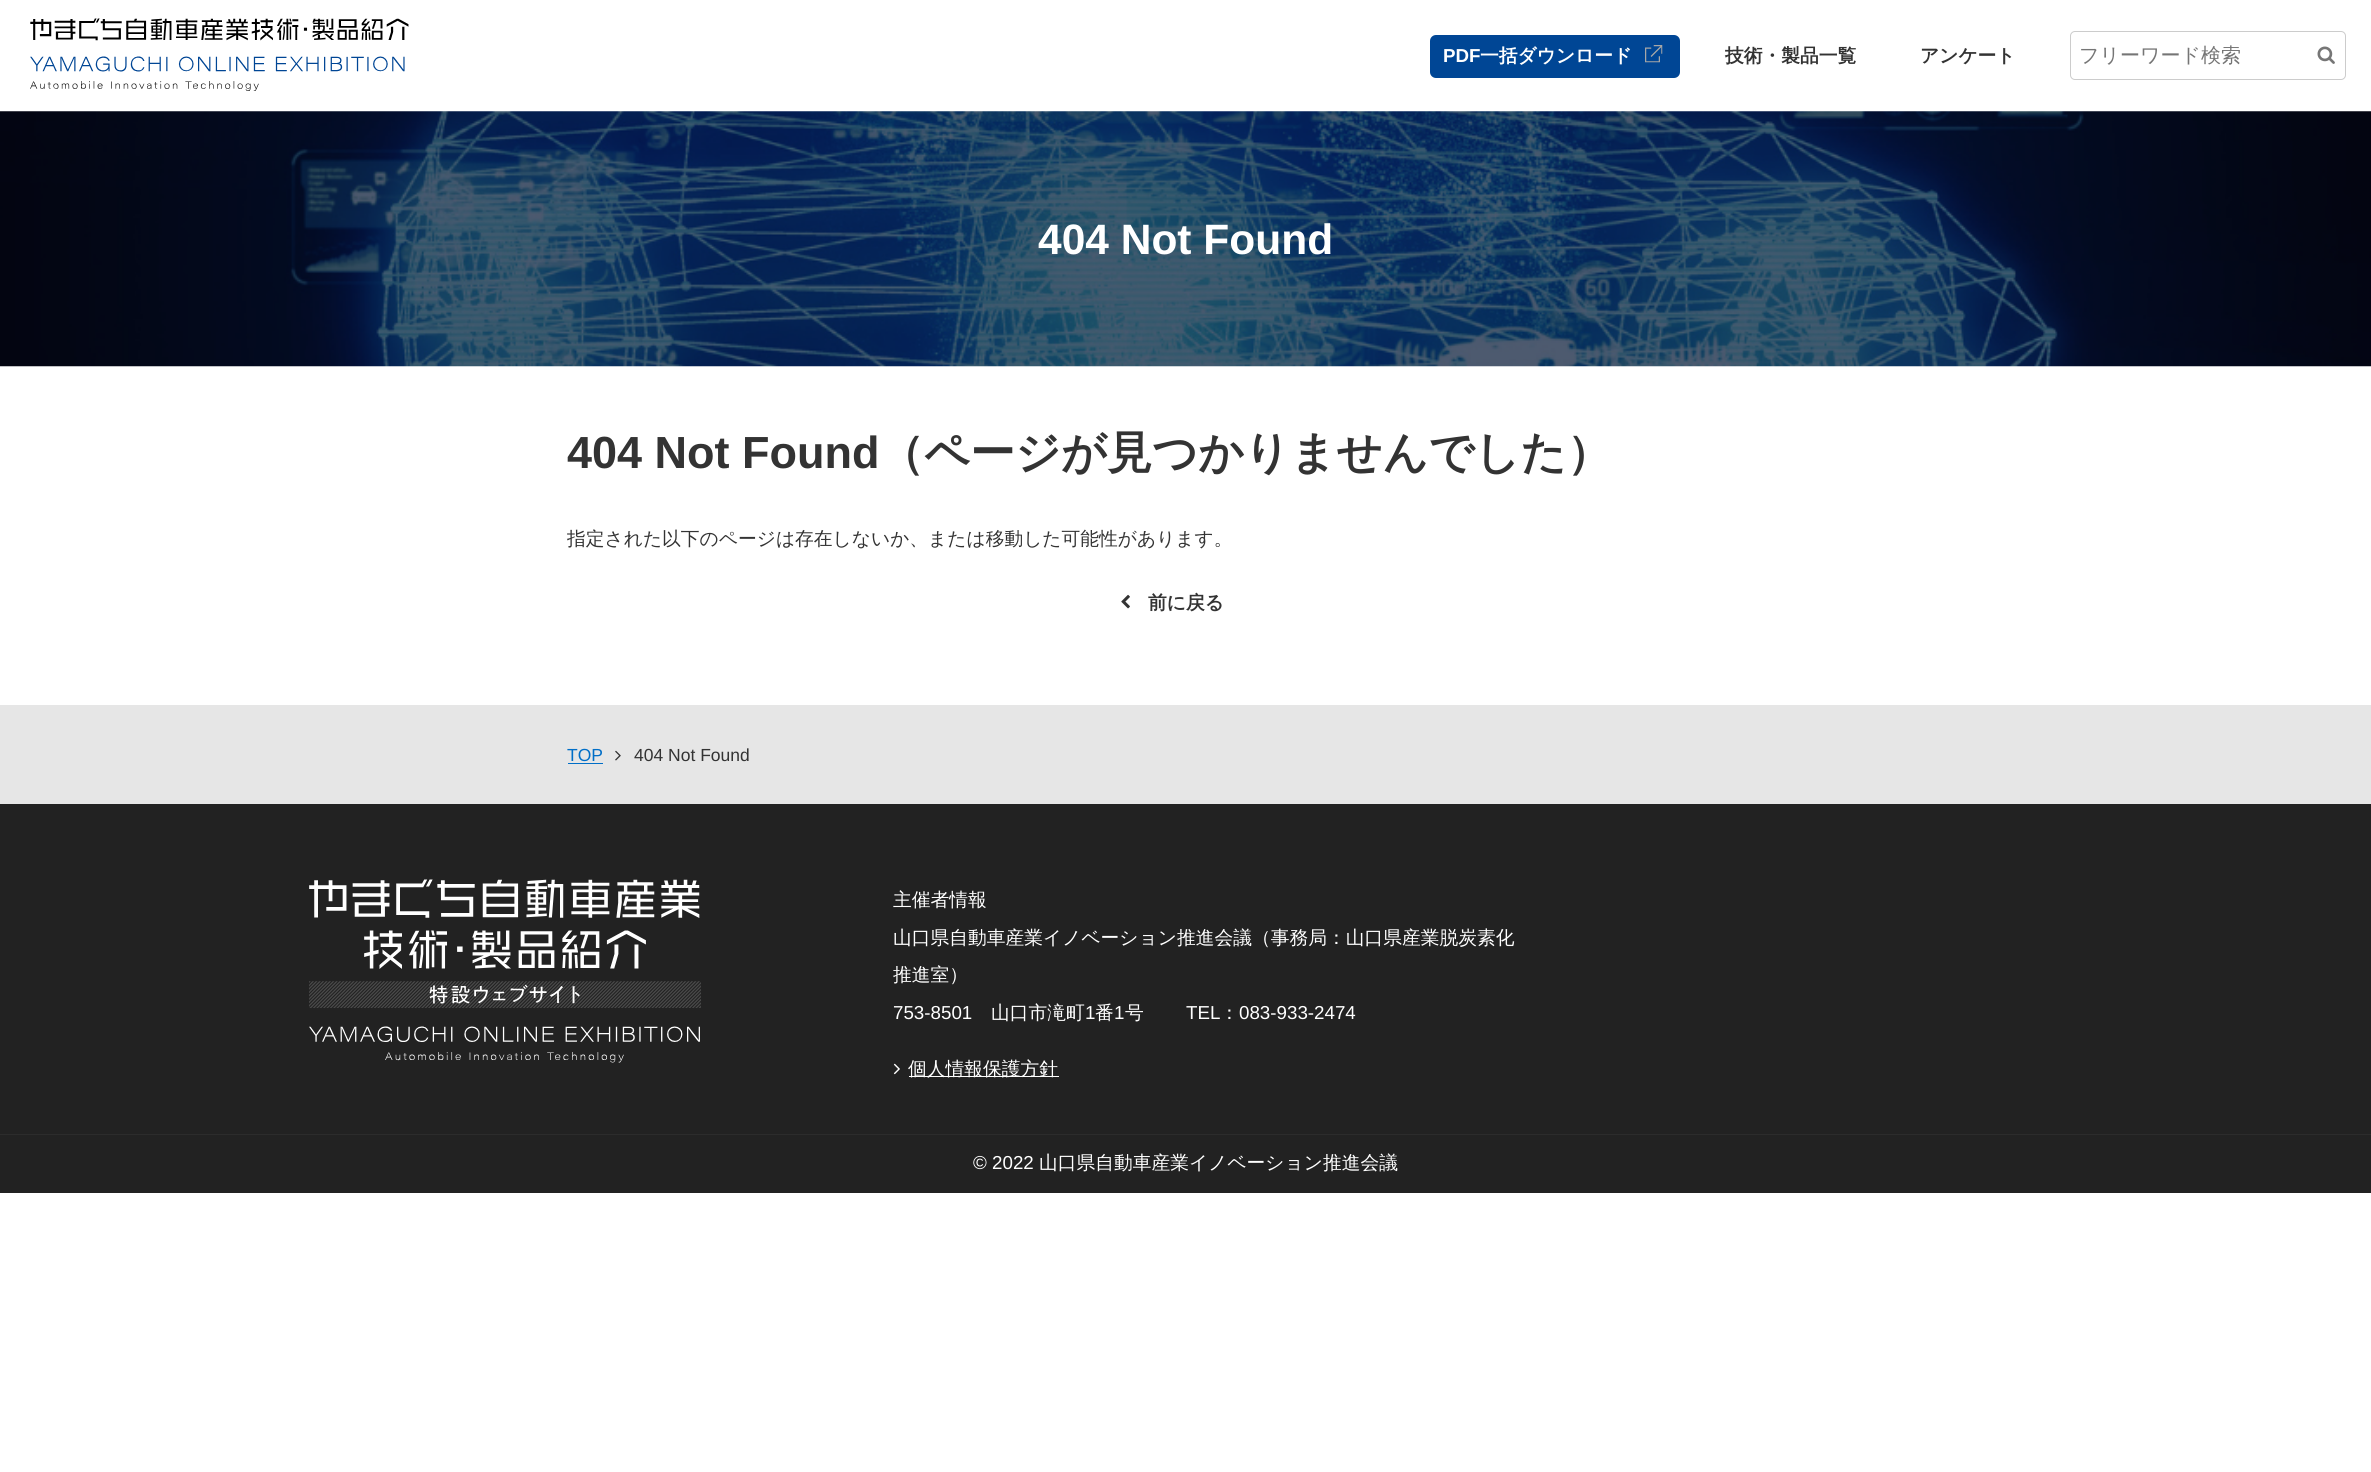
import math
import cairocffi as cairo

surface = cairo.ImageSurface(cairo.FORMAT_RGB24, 2371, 1472)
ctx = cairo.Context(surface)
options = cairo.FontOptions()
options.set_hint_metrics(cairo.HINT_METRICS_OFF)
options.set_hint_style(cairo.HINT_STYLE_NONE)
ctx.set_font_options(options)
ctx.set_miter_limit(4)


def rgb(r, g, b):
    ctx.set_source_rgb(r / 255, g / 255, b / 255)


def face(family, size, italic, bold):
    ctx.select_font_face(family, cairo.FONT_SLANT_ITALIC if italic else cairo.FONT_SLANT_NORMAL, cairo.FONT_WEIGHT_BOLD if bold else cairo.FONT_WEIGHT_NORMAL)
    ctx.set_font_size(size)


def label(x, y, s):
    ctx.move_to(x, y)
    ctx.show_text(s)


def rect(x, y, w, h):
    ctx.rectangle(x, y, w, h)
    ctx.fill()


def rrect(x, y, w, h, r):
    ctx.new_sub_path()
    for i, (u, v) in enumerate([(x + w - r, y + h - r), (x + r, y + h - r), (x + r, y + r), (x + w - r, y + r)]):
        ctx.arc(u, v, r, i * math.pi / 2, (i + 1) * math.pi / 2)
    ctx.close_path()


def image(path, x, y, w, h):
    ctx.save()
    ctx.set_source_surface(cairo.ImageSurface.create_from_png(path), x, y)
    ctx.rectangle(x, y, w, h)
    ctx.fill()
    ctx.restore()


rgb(255, 255, 255)
ctx.paint()
image('image0.png', 30, 18, 379, 73)
rgb(0, 70, 149)
rrect(1430, 35, 250, 43, 6)
ctx.fill()
face('Liberation Sans', 18.75, 0, 1)
rgb(255, 255, 255)
label(1443, 62, 'PDF')
face('WenQuanYi Zen Hei', 18.75, 0, 1)
label(1480, 62, '一括ダウンロード')
image('image1.png', 1645, 45, 18, 18)
rgb(51, 51, 51)
label(1725, 62, '技術・製品一覧')
label(1920, 62, 'アンケート')
rrect(2070.5, 31.5, 275, 48, 4.5)
rgb(204, 204, 204)
ctx.set_line_width(1)
ctx.stroke()
face('WenQuanYi Zen Hei Medium', 20, 0, 0)
rgb(117, 117, 117)
label(2079, 62, 'フリーワード検索')
image('image2.png', 2317, 46, 18, 18)
image('image3.png', 0, 111, 2371, 256)
face('Liberation Sans', 42.5, 0, 1)
rgb(255, 255, 255)
label(1038, 254, '404 Not Found')
face('Liberation Sans', 45, 0, 1)
rgb(51, 51, 51)
label(567, 468, '404 Not Found')
face('WenQuanYi Zen Hei', 45, 0, 1)
label(879, 468, '（ページが見つかりませんでした）')
face('WenQuanYi Zen Hei Medium', 18.75, 0, 0)
label(567, 545, '指定された以下のページは存在しないか、または移動した可能性があります。')
image('image4.png', 1121, 594, 9, 15)
face('WenQuanYi Zen Hei', 18.75, 0, 1)
label(1148, 609, '前に戻る')
rgb(230, 230, 230)
rect(0, 705, 2371, 99)
face('Liberation Sans', 17.5, 0, 0)
rgb(0, 110, 199)
label(567, 761, 'TOP')
rect(568, 763, 35, 1)
image('image5.png', 615, 750, 6, 11)
rgb(51, 51, 51)
label(634, 761, '404 Not Found')
rgb(34, 34, 34)
rect(0, 804, 2371, 389)
image('image6.png', 309, 879, 392, 184)
face('WenQuanYi Zen Hei Medium', 18.75, 0, 0)
rgb(255, 255, 255)
label(893, 906, '主催者情報')
label(893, 944, '山口県自動車産業イノベーション推進会議（事務局：山口県産業脱炭素化')
label(893, 981, '推進室）')
face('Liberation Sans', 18.75, 0, 0)
label(893, 1019, '753-8501')
face('WenQuanYi Zen Hei Medium', 18.75, 0, 0)
label(991, 1019, '山口市滝町')
face('Liberation Sans', 18.75, 0, 0)
label(1085, 1019, '1')
face('WenQuanYi Zen Hei Medium', 18.75, 0, 0)
label(1095, 1019, '番')
face('Liberation Sans', 18.75, 0, 0)
label(1114, 1019, '1')
face('WenQuanYi Zen Hei Medium', 18.75, 0, 0)
label(1125, 1019, '号')
face('Liberation Sans', 18.75, 0, 0)
label(1186, 1019, 'TEL')
face('WenQuanYi Zen Hei Medium', 18.75, 0, 0)
label(1220, 1019, '：')
face('Liberation Sans', 18.75, 0, 0)
label(1239, 1019, '083-933-2474')
image('image7.png', 893, 1063, 7, 12)
rect(909, 1076, 150, 1)
face('WenQuanYi Zen Hei Medium', 18.75, 0, 0)
label(908, 1075, '個人情報保護方針')
rgb(44, 44, 44)
rect(0, 1134, 2371, 1)
face('Liberation Sans', 18.75, 0, 0)
rgb(255, 255, 255)
label(973, 1169, '© 2022')
face('WenQuanYi Zen Hei Medium', 18.75, 0, 0)
label(1039, 1169, '山口県自動車産業イノベーション推進会議')
surface.write_to_png('render.png')
